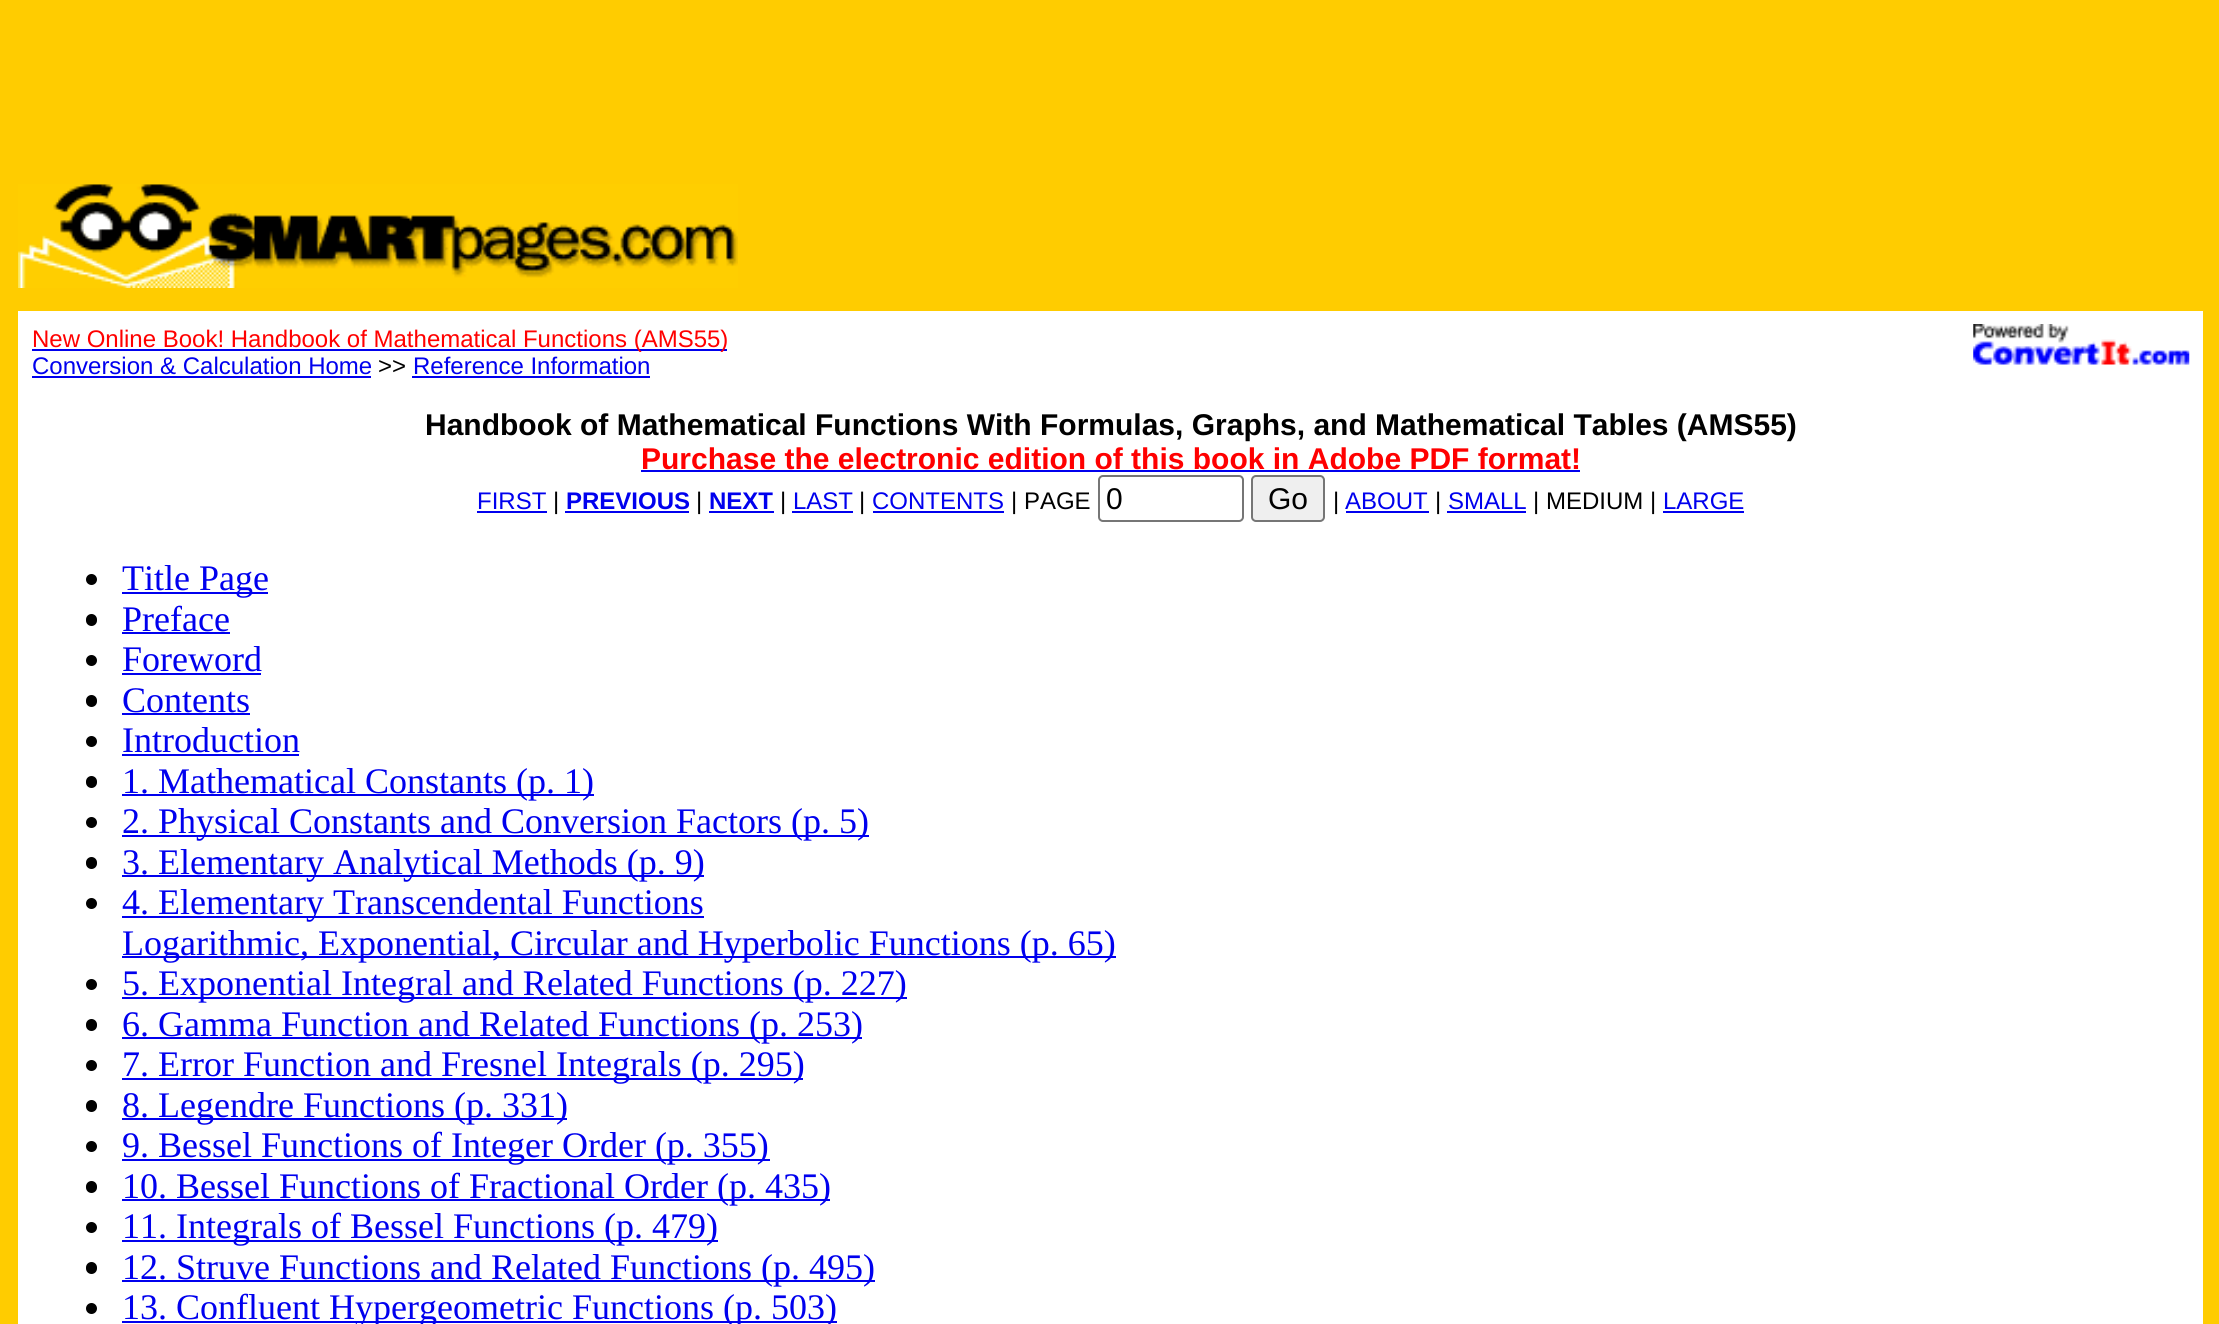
import math
import cairocffi as cairo

surface = cairo.ImageSurface(cairo.FORMAT_RGB24, 2219, 1324)
ctx = cairo.Context(surface)
options = cairo.FontOptions()
options.set_hint_metrics(cairo.HINT_METRICS_OFF)
options.set_hint_style(cairo.HINT_STYLE_NONE)
ctx.set_font_options(options)
ctx.set_miter_limit(4)


def rgb(r, g, b):
    ctx.set_source_rgb(r / 255, g / 255, b / 255)


def face(family, size, italic, bold):
    ctx.select_font_face(family, cairo.FONT_SLANT_ITALIC if italic else cairo.FONT_SLANT_NORMAL, cairo.FONT_WEIGHT_BOLD if bold else cairo.FONT_WEIGHT_NORMAL)
    ctx.set_font_size(size)


def label(x, y, s):
    ctx.move_to(x, y)
    ctx.show_text(s)


def rect(x, y, w, h):
    ctx.rectangle(x, y, w, h)
    ctx.fill()


def rrect(x, y, w, h, r):
    ctx.new_sub_path()
    for i, (u, v) in enumerate([(x + w - r, y + h - r), (x + r, y + h - r), (x + r, y + r), (x + w - r, y + r)]):
        ctx.arc(u, v, r, i * math.pi / 2, (i + 1) * math.pi / 2)
    ctx.close_path()


def image(path, x, y, w, h):
    ctx.save()
    ctx.set_source_surface(cairo.ImageSurface.create_from_png(path), x, y)
    ctx.rectangle(x, y, w, h)
    ctx.fill()
    ctx.restore()


rgb(255, 204, 0)
ctx.paint()
image('image0.png', 18, 184, 720, 104)
rgb(255, 255, 255)
rect(18, 311, 2185, 1013)
rgb(0, 0, 238)
rect(32, 349, 695, 2)
face('Liberation Sans', 24, 0, 0)
rgb(255, 0, 0)
label(32, 347, 'New Online Book! Handbook of Mathematical Functions (AMS55)')
image('image1.png', 1973, 324, 217, 41)
rgb(0, 0, 238)
label(32, 374, 'Conversion & Calculation Home')
rect(32, 376, 339, 2)
rgb(0, 0, 0)
label(378, 374, '>>')
rgb(0, 0, 238)
label(413, 374, 'Reference Information')
rect(412, 376, 238, 2)
face('Liberation Sans', 30, 0, 1)
rgb(0, 0, 0)
label(425, 435, 'Handbook of Mathematical Functions With Formulas, Graphs, and Mathematical Tables (AMS55)')
rgb(255, 0, 0)
label(641, 469, 'Purchase the electronic edition of this book in Adobe PDF format!')
rgb(0, 0, 238)
rect(641, 470, 939, 2)
face('Liberation Sans', 24, 0, 0)
label(477, 509, 'FIRST')
rect(477, 511, 70, 2)
rgb(0, 0, 0)
label(553, 509, '|')
face('Liberation Sans', 24, 0, 1)
rgb(0, 0, 238)
label(566, 509, 'PREVIOUS')
rect(565, 511, 124, 2)
face('Liberation Sans', 24, 0, 0)
rgb(0, 0, 0)
label(696, 509, '|')
face('Liberation Sans', 24, 0, 1)
rgb(0, 0, 238)
label(709, 509, 'NEXT')
rect(709, 511, 65, 2)
face('Liberation Sans', 24, 0, 0)
rgb(0, 0, 0)
label(780, 509, '|')
rgb(0, 0, 238)
label(793, 509, 'LAST')
rect(792, 511, 61, 2)
rgb(0, 0, 0)
label(859, 509, '|')
rgb(0, 0, 238)
label(872, 509, 'CONTENTS')
rect(873, 511, 131, 2)
rgb(0, 0, 0)
label(1011, 509, '| PAGE')
rrect(1099, 476, 144, 45, 4)
rgb(118, 118, 118)
ctx.stroke()
face('Liberation Sans', 30, 0, 0)
rgb(0, 0, 0)
label(1106, 509, '0')
rgb(239, 239, 239)
rrect(1252, 476, 72, 45, 4)
ctx.fill_preserve()
rgb(118, 118, 118)
ctx.stroke()
rgb(0, 0, 0)
label(1268, 509, 'Go')
face('Liberation Sans', 24, 0, 0)
label(1333, 509, '|')
rgb(0, 0, 238)
label(1345, 509, 'ABOUT')
rect(1346, 511, 83, 2)
rgb(0, 0, 0)
label(1435, 509, '|')
rgb(0, 0, 238)
label(1448, 509, 'SMALL')
rect(1447, 511, 79, 2)
rgb(0, 0, 0)
label(1533, 509, '| MEDIUM |')
rgb(0, 0, 238)
label(1663, 509, 'LARGE')
rect(1663, 511, 81, 2)
rgb(0, 0, 0)
ctx.new_path()
ctx.arc(91.5, 579.5, 5.5, 0, 2 * math.pi)
ctx.fill()
rgb(0, 0, 238)
rect(122, 592, 146, 2)
face('Liberation Serif', 36, 0, 0)
label(122, 590, 'Title Page')
rgb(0, 0, 0)
rrect(86, 614, 11, 12, 5.5)
ctx.fill()
rgb(0, 0, 238)
label(122, 631, 'Preface')
rect(122, 632, 108, 2)
rgb(0, 0, 0)
ctx.new_path()
ctx.arc(91.5, 660.5, 5.5, 0, 2 * math.pi)
ctx.fill()
rgb(0, 0, 238)
label(122, 671, 'Foreword')
rect(122, 673, 139, 2)
rgb(0, 0, 0)
rrect(86, 695, 11, 12, 5.5)
ctx.fill()
rgb(0, 0, 238)
label(122, 712, 'Contents')
rect(122, 713, 128, 2)
rgb(0, 0, 0)
ctx.new_path()
ctx.arc(91.5, 741.5, 5.5, 0, 2 * math.pi)
ctx.fill()
rgb(0, 0, 238)
label(122, 752, 'Introduction')
rect(122, 754, 177, 2)
rgb(0, 0, 0)
rrect(86, 776, 11, 12, 5.5)
ctx.fill()
rgb(0, 0, 238)
rect(122, 794, 472, 2)
label(122, 793, '1. Mathematical Constants (p. 1)')
rgb(0, 0, 0)
ctx.new_path()
ctx.arc(91.5, 822.5, 5.5, 0, 2 * math.pi)
ctx.fill()
rgb(0, 0, 238)
rect(122, 835, 747, 2)
label(122, 833, '2. Physical Constants and Conversion Factors (p. 5)')
rgb(0, 0, 0)
rrect(86, 857, 11, 12, 5.5)
ctx.fill()
rgb(0, 0, 238)
rect(122, 875, 582, 2)
label(122, 874, '3. Elementary Analytical Methods (p. 9)')
rgb(0, 0, 0)
ctx.new_path()
ctx.arc(91.5, 903.5, 5.5, 0, 2 * math.pi)
ctx.fill()
rgb(0, 0, 238)
rect(122, 916, 582, 2)
label(122, 914, '4. Elementary Transcendental Functions')
rect(122, 956, 994, 2)
label(122, 955, 'Logarithmic, Exponential, Circular and Hyperbolic Functions (p. 65)')
rgb(0, 0, 0)
ctx.new_path()
ctx.arc(91.5, 984.5, 5.5, 0, 2 * math.pi)
ctx.fill()
rgb(0, 0, 238)
rect(122, 997, 785, 2)
label(122, 995, '5. Exponential Integral and Related Functions (p. 227)')
rgb(0, 0, 0)
rrect(86, 1019, 11, 12, 5.5)
ctx.fill()
rgb(0, 0, 238)
rect(122, 1037, 740, 2)
label(122, 1036, '6. Gamma Function and Related Functions (p. 253)')
rgb(0, 0, 0)
ctx.new_path()
ctx.arc(91.5, 1065.5, 5.5, 0, 2 * math.pi)
ctx.fill()
rgb(0, 0, 238)
rect(122, 1078, 681, 2)
label(122, 1076, '7. Error Function and Fresnel Integrals (p. 295)')
rgb(0, 0, 0)
rrect(86, 1100, 11, 12, 5.5)
ctx.fill()
rgb(0, 0, 238)
rect(122, 1118, 445, 2)
label(122, 1117, '8. Legendre Functions (p. 331)')
rgb(0, 0, 0)
ctx.new_path()
ctx.arc(91.5, 1146.5, 5.5, 0, 2 * math.pi)
ctx.fill()
rgb(0, 0, 238)
rect(122, 1159, 648, 2)
label(122, 1157, '9. Bessel Functions of Integer Order (p. 355)')
rgb(0, 0, 0)
rrect(86, 1181, 11, 12, 5.5)
ctx.fill()
rgb(0, 0, 238)
rect(122, 1199, 708, 2)
label(122, 1198, '10. Bessel Functions of Fractional Order (p. 435)')
rgb(0, 0, 0)
ctx.new_path()
ctx.arc(91.5, 1227.5, 5.5, 0, 2 * math.pi)
ctx.fill()
rgb(0, 0, 238)
rect(122, 1240, 596, 2)
label(122, 1238, '11. Integrals of Bessel Functions (p. 479)')
rgb(0, 0, 0)
rrect(86, 1262, 11, 12, 5.5)
ctx.fill()
rgb(0, 0, 238)
rect(122, 1280, 753, 2)
label(122, 1279, '12. Struve Functions and Related Functions (p. 495)')
rgb(0, 0, 0)
ctx.new_path()
ctx.arc(91.5, 1308.5, 5.5, 0, 2 * math.pi)
ctx.fill()
rgb(0, 0, 238)
rect(122, 1321, 715, 2)
label(122, 1319, '13. Confluent Hypergeometric Functions (p. 503)')
surface.write_to_png('render.png')
